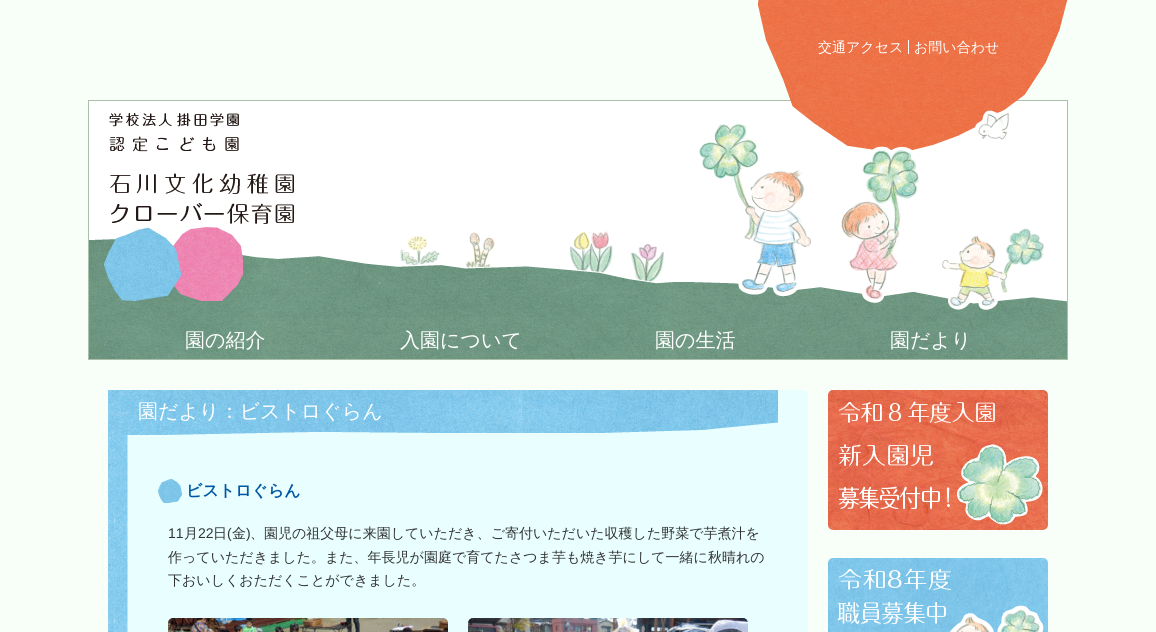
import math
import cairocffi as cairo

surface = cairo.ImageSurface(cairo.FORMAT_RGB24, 1156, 632)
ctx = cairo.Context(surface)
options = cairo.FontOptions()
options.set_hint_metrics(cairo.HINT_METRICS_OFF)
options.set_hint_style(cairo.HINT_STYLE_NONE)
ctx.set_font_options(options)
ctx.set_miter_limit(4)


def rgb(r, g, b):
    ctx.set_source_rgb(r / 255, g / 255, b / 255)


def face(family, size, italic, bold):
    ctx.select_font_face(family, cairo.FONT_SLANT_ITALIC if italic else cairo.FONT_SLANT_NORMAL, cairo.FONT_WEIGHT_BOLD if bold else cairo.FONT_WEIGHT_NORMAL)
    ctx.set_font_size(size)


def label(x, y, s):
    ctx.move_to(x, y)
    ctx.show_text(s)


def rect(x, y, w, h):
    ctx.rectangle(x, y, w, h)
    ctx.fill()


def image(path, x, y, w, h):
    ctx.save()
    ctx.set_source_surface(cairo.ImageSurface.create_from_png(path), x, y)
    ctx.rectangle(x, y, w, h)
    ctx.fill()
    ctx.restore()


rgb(248, 255, 248)
ctx.paint()
image('image1.png', 89, 101, 978, 258)
ctx.rectangle(88.5, 100.5, 979, 259)
rgb(171, 191, 170)
ctx.set_line_width(1)
ctx.stroke()
image('image0.png', 758, 0, 310, 151)
rgb(255, 255, 255)
rect(908, 40, 1, 14)
face('WenQuanYi Zen Hei Medium', 14, 0, 0)
label(818, 52, '交通アクセス')
label(914, 52, 'お問い合わせ')
image('image2.png', 109, 113, 185, 111)
image('image3.png', 699, 110, 345, 200)
face('WenQuanYi Zen Hei Medium', 20, 0, 0)
label(185, 347, '園の紹介')
label(400, 347, '入園について')
label(655, 347, '園の生活')
label(890, 347, '園だより')
rgb(233, 255, 255)
ctx.new_path()
ctx.move_to(108, 390)
ctx.line_to(803, 390)
ctx.curve_to(806, 390, 808, 392, 808, 395)
ctx.line_to(808, 632)
ctx.curve_to(808, 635, 806, 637, 803, 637)
ctx.line_to(108, 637)
ctx.close_path()
ctx.fill()
image('image4.png', 108, 435, 20, 197)
image('image5.png', 108, 390, 670, 45)
rgb(255, 255, 255)
label(138, 418, '園だより：ビストロぐらん')
image('image6.png', 158, 479, 24, 24)
face('WenQuanYi Zen Hei', 16, 0, 1)
rgb(0, 88, 164)
label(186, 496, 'ビストロぐらん')
face('Liberation Sans', 14, 0, 0)
rgb(51, 51, 51)
label(168, 538, '11')
face('WenQuanYi Zen Hei Medium', 14, 0, 0)
label(184, 538, '月')
face('Liberation Sans', 14, 0, 0)
label(198, 538, '22')
face('WenQuanYi Zen Hei Medium', 14, 0, 0)
label(213, 538, '日')
face('Liberation Sans', 14, 0, 0)
label(227, 538, '(')
face('WenQuanYi Zen Hei Medium', 14, 0, 0)
label(232, 538, '金')
face('Liberation Sans', 14, 0, 0)
label(246, 538, ')')
face('WenQuanYi Zen Hei Medium', 14, 0, 0)
label(250, 538, '、園児の祖父母に来園していただき、ご寄付いただいた収穫した野菜で芋煮汁を')
label(168, 562, '作っていただきました。また、年長児が園庭で育てたさつま芋も焼き芋にして一緒に秋晴れの')
label(168, 585, '下おいしくおただくことができました。')
image('image7.png', 168, 618, 280, 14)
image('image8.png', 468, 618, 280, 14)
image('image9.png', 828, 390, 220, 140)
image('image10.png', 828, 558, 220, 74)
surface.write_to_png('render.png')
